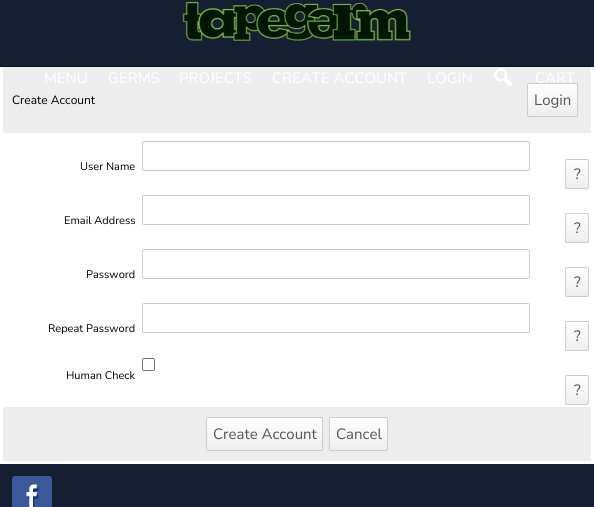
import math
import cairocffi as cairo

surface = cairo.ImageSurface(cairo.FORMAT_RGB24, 594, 507)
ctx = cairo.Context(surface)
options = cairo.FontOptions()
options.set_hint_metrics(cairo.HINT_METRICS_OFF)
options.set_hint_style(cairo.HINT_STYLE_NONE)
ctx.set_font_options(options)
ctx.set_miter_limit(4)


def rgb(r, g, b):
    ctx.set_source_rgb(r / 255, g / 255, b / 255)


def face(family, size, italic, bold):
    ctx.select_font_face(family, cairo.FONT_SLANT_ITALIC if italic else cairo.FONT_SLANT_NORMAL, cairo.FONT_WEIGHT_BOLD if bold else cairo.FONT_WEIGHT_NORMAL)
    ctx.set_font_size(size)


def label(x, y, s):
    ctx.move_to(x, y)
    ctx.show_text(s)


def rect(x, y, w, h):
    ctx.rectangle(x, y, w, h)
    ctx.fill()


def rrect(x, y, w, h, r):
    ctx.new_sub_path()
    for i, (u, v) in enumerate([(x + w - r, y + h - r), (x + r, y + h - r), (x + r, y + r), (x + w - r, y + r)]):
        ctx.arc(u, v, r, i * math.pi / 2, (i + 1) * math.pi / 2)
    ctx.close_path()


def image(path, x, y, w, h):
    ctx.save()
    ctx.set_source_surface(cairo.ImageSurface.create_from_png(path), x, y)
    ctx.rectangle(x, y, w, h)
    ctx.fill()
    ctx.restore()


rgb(255, 255, 255)
ctx.paint()
rgb(22, 30, 52)
rect(0, 0, 594, 66)
rgb(8, 16, 38)
rect(0, 66, 594, 1)
image('image0.png', 182, 1, 229, 40)
rgb(237, 237, 237)
rect(3, 67, 588, 66)
face('Nunito Sans', 15, 0, 0)
rgb(255, 255, 255)
label(44, 83, 'MENU')
label(108, 83, 'GERMS')
label(179, 83, 'PROJECTS')
label(272, 83, 'CREATE ACCOUNT')
label(427, 83, 'LOGIN')
image('image1.png', 494, 68, 18, 18)
ctx.save()
rrect(527, 83, 51, 34, 2)
ctx.clip()
gradient = cairo.LinearGradient(553, 84, 553, 116)
gradient.add_color_stop_rgba(0, 1, 1, 1, 1)
gradient.add_color_stop_rgba(1, 0.933, 0.933, 0.933, 1)
ctx.set_source(gradient)
rect(527, 84, 51, 32)
ctx.restore()
rrect(527.5, 83.5, 50, 33, 1.5)
rgb(204, 204, 204)
ctx.set_line_width(1)
ctx.stroke()
rgb(255, 255, 255)
label(535, 83, 'CART')
face('Nunito Sans', 12, 0, 0)
rgb(0, 0, 0)
label(12, 104, 'Create Account')
face('Nunito Sans', 15, 0, 0)
rgb(85, 85, 85)
label(534, 105, 'Login')
face('Nunito Sans', 11, 0, 0)
rgb(0, 0, 0)
label(80, 170, 'User Name')
rrect(142.5, 141.5, 387, 29, 1.5)
rgb(204, 204, 204)
ctx.stroke()
ctx.save()
rrect(565, 159, 24, 30, 2)
ctx.clip()
gradient = cairo.LinearGradient(577, 160, 577, 188)
gradient.add_color_stop_rgba(0, 1, 1, 1, 1)
gradient.add_color_stop_rgba(1, 0.933, 0.933, 0.933, 1)
ctx.set_source(gradient)
rect(565, 160, 24, 28)
ctx.restore()
rrect(565.5, 159.5, 23, 29, 1.5)
ctx.stroke()
face('Nunito Sans', 15, 0, 0)
rgb(85, 85, 85)
label(574, 179, '?')
face('Nunito Sans', 11, 0, 0)
rgb(0, 0, 0)
label(64, 224, 'Email Address')
rrect(142.5, 195.5, 387, 29, 1.5)
rgb(204, 204, 204)
ctx.stroke()
ctx.save()
rrect(565, 213, 24, 30, 2)
ctx.clip()
gradient = cairo.LinearGradient(577, 214, 577, 242)
gradient.add_color_stop_rgba(0, 1, 1, 1, 1)
gradient.add_color_stop_rgba(1, 0.933, 0.933, 0.933, 1)
ctx.set_source(gradient)
rect(565, 214, 24, 28)
ctx.restore()
rrect(565.5, 213.5, 23, 29, 1.5)
ctx.stroke()
face('Nunito Sans', 15, 0, 0)
rgb(85, 85, 85)
label(574, 233, '?')
face('Nunito Sans', 11, 0, 0)
rgb(0, 0, 0)
label(86, 278, 'Password')
rrect(142.5, 249.5, 387, 29, 1.5)
rgb(204, 204, 204)
ctx.stroke()
ctx.save()
rrect(565, 267, 24, 30, 2)
ctx.clip()
gradient = cairo.LinearGradient(577, 268, 577, 296)
gradient.add_color_stop_rgba(0, 1, 1, 1, 1)
gradient.add_color_stop_rgba(1, 0.933, 0.933, 0.933, 1)
ctx.set_source(gradient)
rect(565, 268, 24, 28)
ctx.restore()
rrect(565.5, 267.5, 23, 29, 1.5)
ctx.stroke()
face('Nunito Sans', 15, 0, 0)
rgb(85, 85, 85)
label(574, 287, '?')
face('Nunito Sans', 11, 0, 0)
rgb(0, 0, 0)
label(48, 332, 'Repeat Password')
rrect(142.5, 303.5, 387, 29, 1.5)
rgb(204, 204, 204)
ctx.stroke()
ctx.save()
rrect(565, 321, 24, 30, 2)
ctx.clip()
gradient = cairo.LinearGradient(577, 322, 577, 350)
gradient.add_color_stop_rgba(0, 1, 1, 1, 1)
gradient.add_color_stop_rgba(1, 0.933, 0.933, 0.933, 1)
ctx.set_source(gradient)
rect(565, 322, 24, 28)
ctx.restore()
rrect(565.5, 321.5, 23, 29, 1.5)
ctx.stroke()
face('Nunito Sans', 15, 0, 0)
rgb(85, 85, 85)
label(574, 341, '?')
face('Nunito Sans', 11, 0, 0)
rgb(0, 0, 0)
label(66, 379, 'Human Check')
rrect(142.5, 358.5, 12, 12, 1.5)
rgb(118, 118, 118)
ctx.stroke()
ctx.save()
rrect(565, 375, 24, 30, 2)
ctx.clip()
gradient = cairo.LinearGradient(577, 376, 577, 404)
gradient.add_color_stop_rgba(0, 1, 1, 1, 1)
gradient.add_color_stop_rgba(1, 0.933, 0.933, 0.933, 1)
ctx.set_source(gradient)
rect(565, 376, 24, 28)
ctx.restore()
rrect(565.5, 375.5, 23, 29, 1.5)
rgb(204, 204, 204)
ctx.stroke()
face('Nunito Sans', 15, 0, 0)
rgb(85, 85, 85)
label(574, 395, '?')
rgb(237, 237, 237)
rect(3, 407, 588, 54)
ctx.save()
rrect(206, 417, 117, 34, 2)
ctx.clip()
gradient = cairo.LinearGradient(265, 418, 265, 450)
gradient.add_color_stop_rgba(0, 1, 1, 1, 1)
gradient.add_color_stop_rgba(1, 0.933, 0.933, 0.933, 1)
ctx.set_source(gradient)
rect(206, 418, 117, 32)
ctx.restore()
rrect(206.5, 417.5, 116, 33, 1.5)
rgb(204, 204, 204)
ctx.stroke()
rgb(85, 85, 85)
label(213, 439, 'Create Account')
ctx.save()
rrect(329, 417, 59, 34, 2)
ctx.clip()
gradient = cairo.LinearGradient(359, 418, 359, 450)
gradient.add_color_stop_rgba(0, 1, 1, 1, 1)
gradient.add_color_stop_rgba(1, 0.933, 0.933, 0.933, 1)
ctx.set_source(gradient)
rect(329, 418, 59, 32)
ctx.restore()
rrect(329.5, 417.5, 58, 33, 1.5)
rgb(204, 204, 204)
ctx.stroke()
rgb(85, 85, 85)
label(336, 439, 'Cancel')
rgb(22, 30, 52)
rect(0, 464, 594, 43)
image('image2.png', 12, 476, 40, 31)
surface.write_to_png('render.png')
